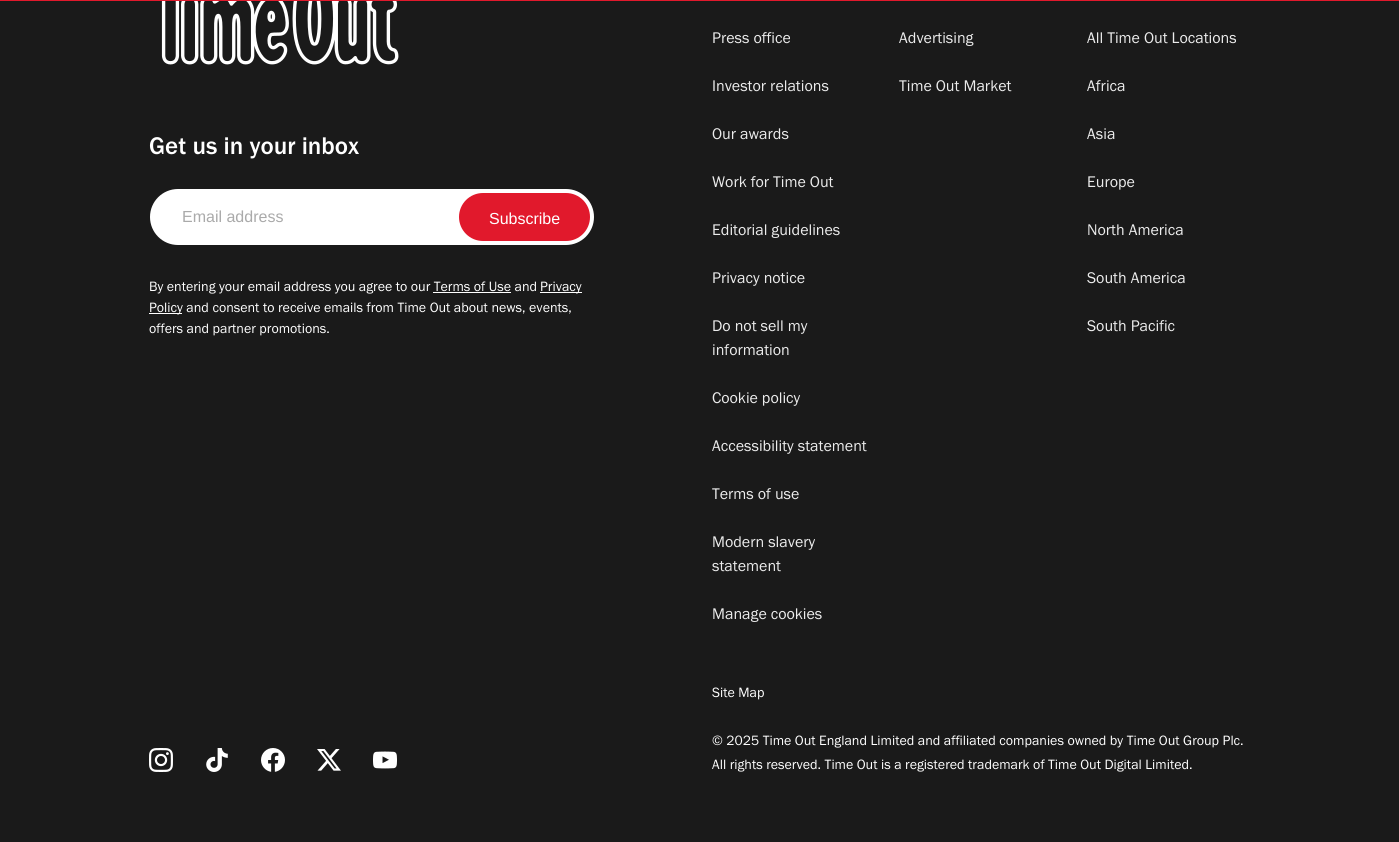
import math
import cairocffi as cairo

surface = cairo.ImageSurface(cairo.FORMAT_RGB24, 1399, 842)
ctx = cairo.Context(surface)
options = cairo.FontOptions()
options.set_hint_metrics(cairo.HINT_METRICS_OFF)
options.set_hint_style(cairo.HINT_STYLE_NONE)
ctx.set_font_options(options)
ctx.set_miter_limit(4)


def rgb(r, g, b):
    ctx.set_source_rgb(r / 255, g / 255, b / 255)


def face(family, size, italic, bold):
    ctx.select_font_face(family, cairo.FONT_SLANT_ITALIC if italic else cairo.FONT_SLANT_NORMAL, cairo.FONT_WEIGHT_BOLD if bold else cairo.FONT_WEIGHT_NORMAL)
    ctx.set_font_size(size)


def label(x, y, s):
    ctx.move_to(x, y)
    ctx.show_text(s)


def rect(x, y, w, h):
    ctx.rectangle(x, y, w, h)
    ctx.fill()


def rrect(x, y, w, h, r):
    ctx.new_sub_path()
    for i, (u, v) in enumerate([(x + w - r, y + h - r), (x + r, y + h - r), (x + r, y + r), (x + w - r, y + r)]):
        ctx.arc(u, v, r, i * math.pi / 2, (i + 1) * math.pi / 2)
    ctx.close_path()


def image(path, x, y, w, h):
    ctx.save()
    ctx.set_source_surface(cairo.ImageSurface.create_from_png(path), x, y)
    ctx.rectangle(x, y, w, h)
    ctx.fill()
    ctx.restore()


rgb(26, 26, 26)
ctx.paint()
rgb(225, 25, 44)
rect(0, 0, 1399, 1)
image('image0.png', 161, 1, 238, 64)
face('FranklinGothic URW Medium', 25, 0, 0)
rgb(255, 255, 255)
label(149, 154, 'Get us in your inbox')
ctx.new_path()
ctx.move_to(178, 189)
ctx.line_to(456, 189)
ctx.line_to(456, 245)
ctx.line_to(178, 245)
ctx.curve_to(162.5, 245, 150, 232.5, 150, 217)
ctx.curve_to(150, 201.5, 162.5, 189, 178, 189)
ctx.close_path()
ctx.fill()
face('Liberation Sans', 16, 0, 0)
rgb(170, 170, 170)
label(182, 222, 'Email address')
gradient = cairo.LinearGradient(455, 217, 594, 217)
gradient.add_color_stop_rgba(0, 1, 1, 1, 1)
gradient.add_color_stop_rgba(0.2, 1, 1, 1, 1)
gradient.add_color_stop_rgba(0.25, 1, 1, 1, 0)
gradient.add_color_stop_rgba(1, 1, 1, 1, 0)
ctx.set_source(gradient)
rect(456, 189, 27, 56)
rgb(225, 25, 44)
rrect(457, 191, 135, 52, 26)
ctx.fill_preserve()
rgb(255, 255, 255)
ctx.set_line_width(4)
ctx.stroke()
label(489, 224, 'Subscribe')
face('FranklinGothic URW', 14, 0, 0)
label(149, 291, 'By entering your email address you agree to our Terms of Use and')
rect(540, 292, 42, 1)
label(540, 291, 'Privacy')
rect(433, 292, 78, 1)
rect(149, 313, 33, 1)
label(149, 312, 'Policy and consent to receive emails from Time Out about news, events,')
label(149, 333, 'offers and partner promotions.')
image('image1.png', 149, 748, 24, 24)
image('image2.png', 206, 748, 22, 24)
image('image3.png', 261, 748, 24, 24)
image('image4.png', 317, 749, 24, 22)
image('image5.png', 373, 751, 24, 18)
face('FranklinGothic URW', 16, 0, 0)
rgb(236, 236, 236)
label(712, 43, 'Press office')
label(712, 91, 'Investor relations')
label(712, 139, 'Our awards')
label(712, 187, 'Work for Time Out')
label(712, 235, 'Editorial guidelines')
label(712, 283, 'Privacy notice')
label(712, 331, 'Do not sell my')
label(712, 355, 'information')
label(712, 403, 'Cookie policy')
label(712, 451, 'Accessibility statement')
label(712, 499, 'Terms of use')
label(712, 547, 'Modern slavery')
label(712, 571, 'statement')
label(712, 619, 'Manage cookies')
label(899, 43, 'Advertising')
label(899, 91, 'Time Out Market')
label(1087, 43, 'All Time Out Locations')
label(1087, 91, 'Africa')
label(1087, 139, 'Asia')
label(1087, 187, 'Europe')
label(1087, 235, 'North America')
label(1087, 283, 'South America')
label(1087, 331, 'South Pacific')
face('FranklinGothic URW', 14, 0, 0)
rgb(255, 255, 255)
label(712, 697, 'Site Map')
label(712, 745, '© 2025 Time Out England Limited and affiliated companies owned by Time Out Group Plc.')
label(712, 769, 'All rights reserved. Time Out is a registered trademark of Time Out Digital Limited.')
surface.write_to_png('render.png')
